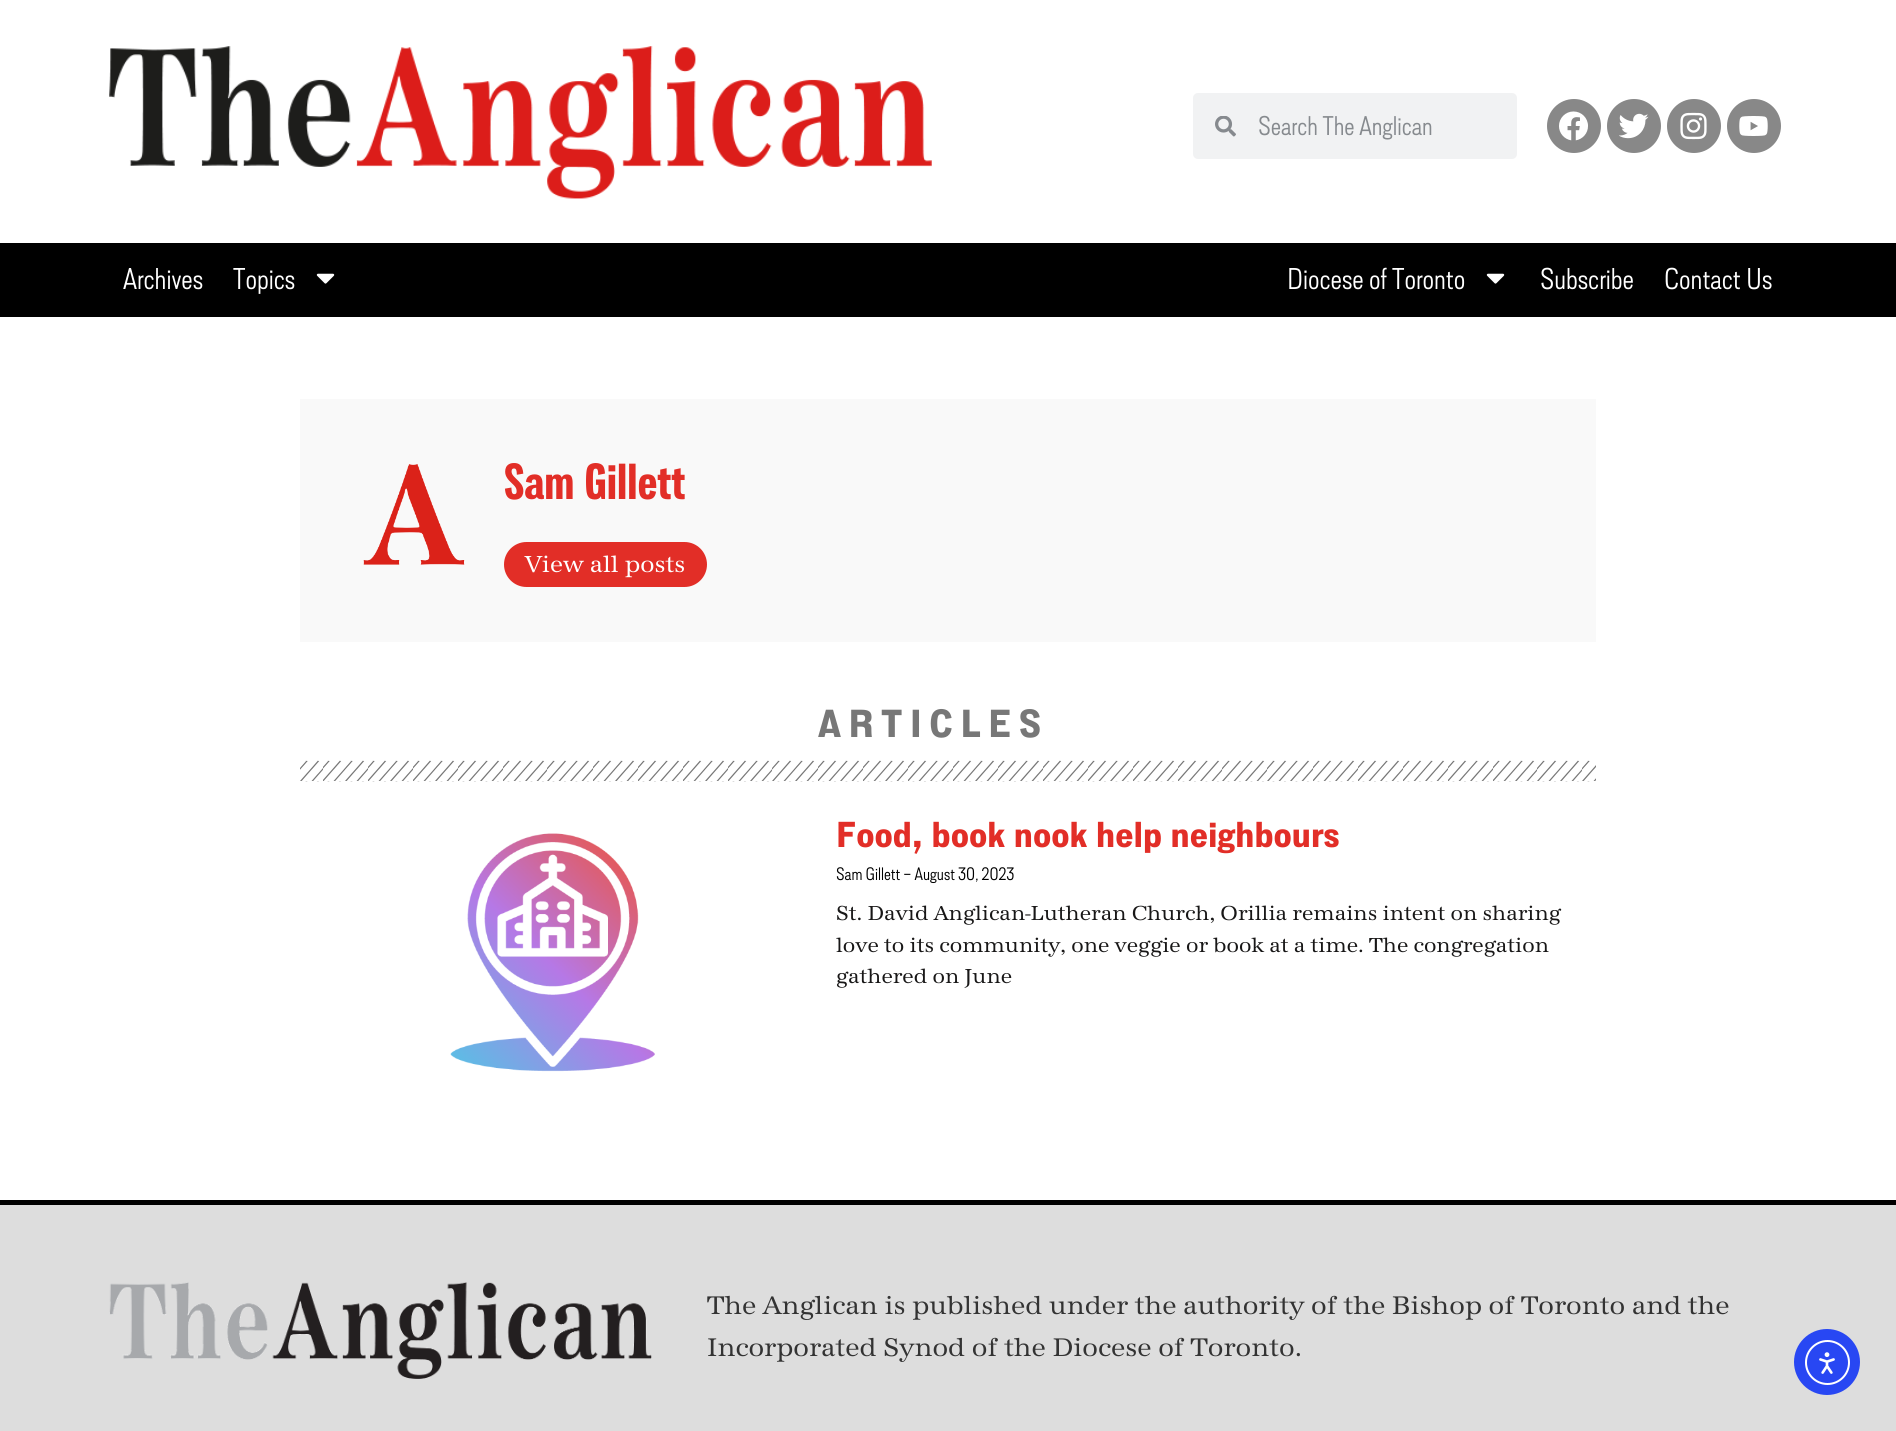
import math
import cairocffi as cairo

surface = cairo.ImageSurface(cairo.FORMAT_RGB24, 1896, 1431)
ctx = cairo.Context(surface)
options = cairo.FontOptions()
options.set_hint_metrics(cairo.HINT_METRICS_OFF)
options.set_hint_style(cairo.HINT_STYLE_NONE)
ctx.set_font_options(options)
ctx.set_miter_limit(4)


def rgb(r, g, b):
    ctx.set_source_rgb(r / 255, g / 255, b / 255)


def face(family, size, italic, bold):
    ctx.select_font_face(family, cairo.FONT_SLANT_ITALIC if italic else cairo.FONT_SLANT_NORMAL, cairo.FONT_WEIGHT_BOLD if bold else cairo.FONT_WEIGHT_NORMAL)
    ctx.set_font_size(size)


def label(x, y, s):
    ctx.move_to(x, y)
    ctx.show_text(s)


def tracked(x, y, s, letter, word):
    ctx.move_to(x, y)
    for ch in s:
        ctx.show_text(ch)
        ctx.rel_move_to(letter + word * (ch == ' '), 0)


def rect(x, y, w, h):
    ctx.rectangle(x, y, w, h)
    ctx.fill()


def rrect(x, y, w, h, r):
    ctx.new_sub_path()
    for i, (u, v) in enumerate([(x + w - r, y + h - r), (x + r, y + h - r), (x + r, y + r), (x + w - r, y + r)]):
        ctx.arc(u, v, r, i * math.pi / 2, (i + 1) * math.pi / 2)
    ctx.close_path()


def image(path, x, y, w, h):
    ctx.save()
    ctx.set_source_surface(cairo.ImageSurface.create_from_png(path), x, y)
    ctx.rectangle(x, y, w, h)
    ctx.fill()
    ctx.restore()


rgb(255, 255, 255)
ctx.paint()
image('image0.png', 109, 46, 823, 153)
rgb(241, 242, 243)
rrect(1193, 93, 324, 66, 5)
ctx.fill()
image('image1.png', 1215, 116, 21, 21)
face('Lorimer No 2 Light', 27, 0, 0)
rgb(134, 138, 142)
label(1258, 135, 'Search The Anglican')
rgb(136, 136, 136)
ctx.new_path()
ctx.arc(1574, 126, 27, 0, 2 * math.pi)
ctx.fill()
image('image2.png', 1559, 111, 29, 30)
ctx.arc(1634, 126, 27, 0, 2 * math.pi)
ctx.fill()
image('image3.png', 1619, 113, 30, 26)
ctx.arc(1694, 126, 27, 0, 2 * math.pi)
ctx.fill()
image('image4.png', 1680, 112, 27, 28)
ctx.arc(1754, 126, 27, 0, 2 * math.pi)
ctx.fill()
image('image5.png', 1739, 116, 29, 20)
rgb(0, 0, 0)
rect(0, 243, 1896, 74)
face('Lorimer No 2 Light', 30, 0, 0)
rgb(255, 255, 255)
label(123, 289, 'Archives')
label(233, 289, 'Topics')
image('image6.png', 316, 273, 19, 11)
label(1287, 289, 'Diocese of Toronto')
image('image6.png', 1486, 273, 19, 11)
label(1540, 289, 'Subscribe')
label(1664, 289, 'Contact Us')
rgb(249, 249, 249)
rect(300, 399, 1296, 243)
image('image7.png', 363, 464, 102, 101)
face('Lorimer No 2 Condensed', 50.5, 0, 1)
rgb(226, 46, 39)
label(504, 499, 'Sam Gillett')
rrect(504, 542, 203, 45, 22.5)
ctx.fill()
face('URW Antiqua', 24, 0, 0)
rgb(255, 255, 255)
label(525, 572, 'View all posts')
face('Lorimer No 2', 39, 0, 1)
rgb(119, 119, 119)
tracked(818, 737, 'ARTICLES', 7.5, 0)
image('image8.png', 300, 760, 1296, 22)
image('image9.png', 450, 833, 205, 239)
face('Lorimer No 2', 36, 0, 1)
rgb(226, 46, 39)
label(836, 847, 'Food, book nook help neighbours')
face('Lorimer No 2 Light', 18, 0, 0)
rgb(0, 0, 0)
label(836, 880, 'Sam Gillett – August 30, 2023')
face('URW Antiqua', 21, 0, 0)
rgb(24, 23, 23)
label(836, 920, 'St. David Anglican-Lutheran Church, Orillia remains intent on sharing')
label(836, 952, 'love to its community, one veggie or book at a time. The congregation')
label(836, 983, 'gathered on June')
rgb(221, 221, 221)
rect(0, 1205, 1896, 226)
rgb(0, 0, 0)
rect(0, 1200, 1896, 5)
image('image10.png', 109, 1282, 543, 97)
face('URW Antiqua', 26.4, 0, 0)
rgb(51, 51, 51)
label(707, 1314, 'The Anglican is published under the authority of the Bishop of Toronto and the')
label(707, 1356, 'Incorporated Synod of the Diocese of Toronto.')
rgb(40, 71, 243)
ctx.new_path()
ctx.arc(1827, 1362, 33, 0, 2 * math.pi)
ctx.fill()
ctx.arc(1827.5, 1362.5, 21.5, 0, 2 * math.pi)
rgb(255, 255, 255)
ctx.stroke()
image('image11.png', 1819, 1352, 16, 22)
surface.write_to_png('render.png')
